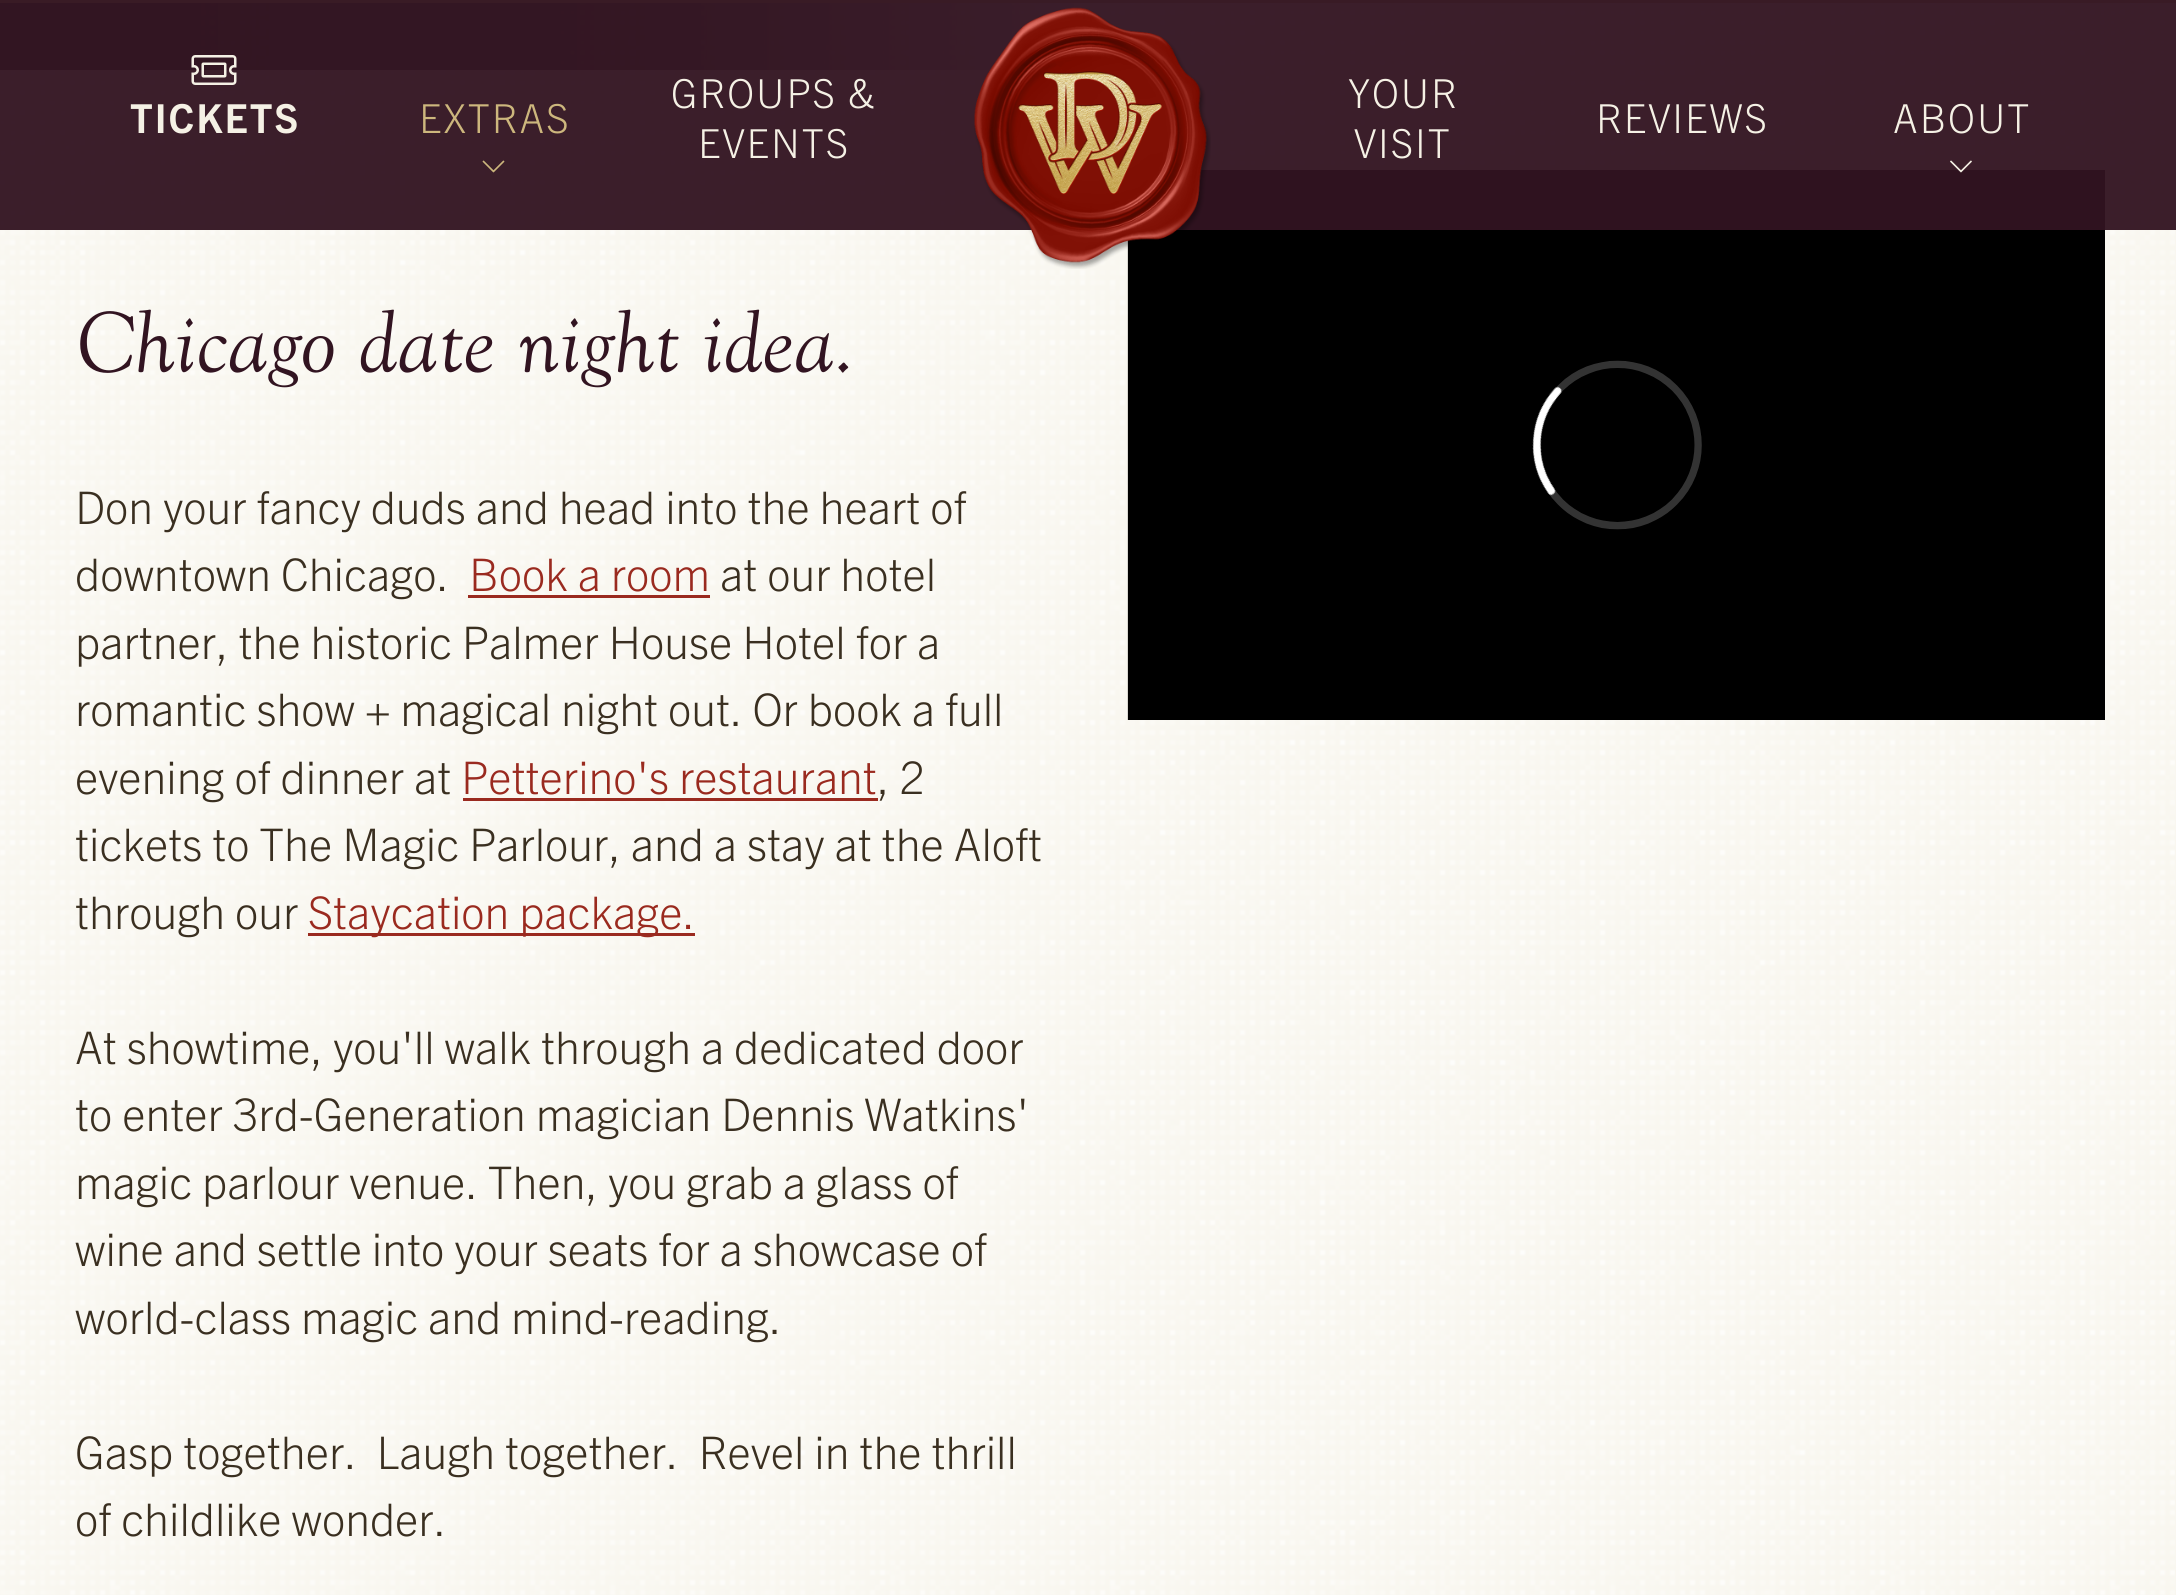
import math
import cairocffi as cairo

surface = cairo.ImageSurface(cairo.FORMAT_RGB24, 2176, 1595)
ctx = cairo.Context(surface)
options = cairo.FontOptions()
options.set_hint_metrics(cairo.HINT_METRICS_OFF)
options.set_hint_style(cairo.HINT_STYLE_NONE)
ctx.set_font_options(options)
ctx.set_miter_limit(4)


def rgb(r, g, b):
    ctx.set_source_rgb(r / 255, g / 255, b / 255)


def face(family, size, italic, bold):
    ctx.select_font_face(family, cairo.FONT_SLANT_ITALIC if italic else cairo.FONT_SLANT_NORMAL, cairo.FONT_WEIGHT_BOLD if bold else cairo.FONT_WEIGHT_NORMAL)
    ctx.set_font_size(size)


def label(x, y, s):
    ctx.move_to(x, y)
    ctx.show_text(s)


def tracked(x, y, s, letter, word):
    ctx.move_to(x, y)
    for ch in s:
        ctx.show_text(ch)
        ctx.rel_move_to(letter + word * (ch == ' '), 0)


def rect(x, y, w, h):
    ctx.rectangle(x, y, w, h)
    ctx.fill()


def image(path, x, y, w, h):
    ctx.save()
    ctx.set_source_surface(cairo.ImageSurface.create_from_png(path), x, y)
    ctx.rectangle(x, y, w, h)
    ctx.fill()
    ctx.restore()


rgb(249, 247, 240)
ctx.paint()
image('image0.png', 0, 3, 2175, 1592)
rgb(205, 183, 125)
rect(0, 0, 2176, 3)
gradient = cairo.LinearGradient(0, 36, 1090, 36)
gradient.add_color_stop_rgba(0, 0, 0, 0, 0.75)
gradient.add_color_stop_rgba(0.6, 0, 0, 0, 0.6)
gradient.add_color_stop_rgba(1, 0, 0, 0, 0)
ctx.set_source(gradient)
rect(0, 3, 1074, 67)
image('image5.png', 1127, 170, 978, 550)
ctx.set_source_rgba(0.196, 0.078, 0.129, 0.95)
rect(0, 0, 2176, 230)
image('image1.png', 974, 7, 237, 262)
image('image2.png', 191, 55, 46, 30)
face('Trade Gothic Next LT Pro', 40, 0, 1)
rgb(245, 241, 229)
tracked(130, 133, 'TICKETS', 2, 0)
face('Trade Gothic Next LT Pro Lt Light', 40, 0, 0)
rgb(205, 183, 125)
tracked(419, 133, 'EXTRAS', 2, 0)
image('image3.png', 482, 160, 23, 13)
rgb(245, 241, 229)
tracked(671, 108, 'GROUPS &', 2, 0)
tracked(698, 158, 'EVENTS', 2, 0)
tracked(1348, 108, 'YOUR', 2, 0)
tracked(1354, 158, 'VISIT', 2, 0)
tracked(1596, 133, 'REVIEWS', 2, 0)
tracked(1893, 133, 'ABOUT', 2, 0)
image('image4.png', 1950, 160, 22, 13)
face('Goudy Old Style', 90, 1, 0)
rgb(50, 20, 33)
label(75, 372, 'Chicago date night idea.')
face('Trade Gothic Next LT Pro Lt Light', 45, 0, 0)
rgb(58, 47, 32)
label(75, 524, 'Don your fancy duds and head into the heart of')
label(75, 591, 'downtown Chicago.')
rgb(154, 42, 31)
label(469, 591, 'Book a room')
rect(468, 595, 242, 3)
rgb(58, 47, 32)
label(720, 591, 'at our hotel')
label(75, 659, 'partner, the historic Palmer House Hotel for a')
label(75, 726, 'romantic show + magical night out. Or book a full')
label(75, 794, 'evening of dinner at')
rgb(154, 42, 31)
label(461, 794, 'Petterino\'s restaurant')
rect(463, 798, 415, 3)
rgb(58, 47, 32)
label(877, 794, ', 2')
label(75, 861, 'tickets to The Magic Parlour, and a stay at the Aloft')
label(75, 929, 'through our')
rgb(154, 42, 31)
rect(308, 933, 387, 3)
label(308, 929, 'Staycation package.')
rgb(58, 47, 32)
label(75, 1064, 'At showtime, you\'ll walk through a dedicated door')
label(75, 1131, 'to enter 3rd-Generation magician Dennis Watkins\'')
label(75, 1199, 'magic parlour venue. Then, you grab a glass of')
label(75, 1266, 'wine and settle into your seats for a showcase of')
label(75, 1334, 'world-class magic and mind-reading.')
label(75, 1469, 'Gasp together.  Laugh together.  Revel in the thrill')
label(75, 1536, 'of childlike wonder.')
surface.write_to_png('render.png')
